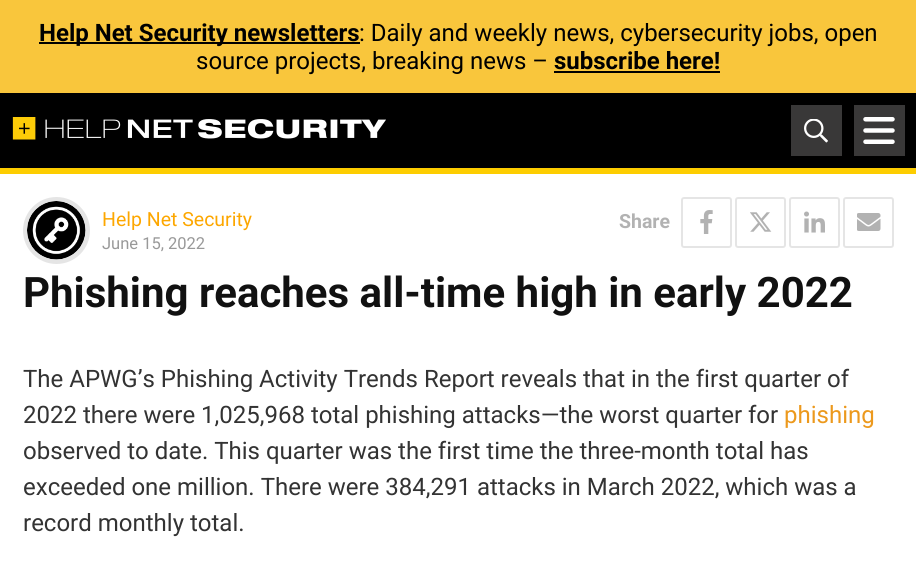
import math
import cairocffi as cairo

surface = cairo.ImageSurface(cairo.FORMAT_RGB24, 916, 577)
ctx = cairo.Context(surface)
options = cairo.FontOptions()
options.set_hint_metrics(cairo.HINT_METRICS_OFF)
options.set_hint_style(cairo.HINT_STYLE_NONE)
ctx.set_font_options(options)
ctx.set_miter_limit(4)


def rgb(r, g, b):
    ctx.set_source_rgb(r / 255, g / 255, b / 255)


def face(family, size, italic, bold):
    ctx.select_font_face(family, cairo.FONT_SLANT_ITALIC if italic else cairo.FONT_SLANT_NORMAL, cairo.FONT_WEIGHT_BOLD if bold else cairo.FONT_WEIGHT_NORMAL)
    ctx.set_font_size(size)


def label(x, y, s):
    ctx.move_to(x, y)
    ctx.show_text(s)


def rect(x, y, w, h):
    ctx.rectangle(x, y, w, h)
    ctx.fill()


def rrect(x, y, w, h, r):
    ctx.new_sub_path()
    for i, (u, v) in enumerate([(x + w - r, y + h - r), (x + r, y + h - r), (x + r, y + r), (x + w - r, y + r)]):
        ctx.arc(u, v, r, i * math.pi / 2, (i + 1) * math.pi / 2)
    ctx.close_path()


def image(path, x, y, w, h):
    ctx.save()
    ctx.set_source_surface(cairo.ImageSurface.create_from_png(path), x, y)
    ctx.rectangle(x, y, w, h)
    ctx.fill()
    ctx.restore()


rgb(255, 255, 255)
ctx.paint()
rgb(249, 198, 60)
rect(0, 0, 916, 93)
rgb(0, 0, 0)
rect(39, 42, 321, 2)
face('Roboto', 24, 0, 1)
label(39, 41, 'Help Net Security newsletters')
face('Roboto', 24, 0, 0)
label(359, 41, ': Daily and weekly news, cybersecurity jobs, open')
label(196, 69, 'source projects, breaking news –')
face('Roboto', 24, 0, 1)
label(554, 69, 'subscribe here!')
rect(554, 71, 166, 2)
rect(0, 93, 916, 75)
image('image0.png', 12, 117, 374, 23)
rgb(57, 56, 56)
rect(791, 105, 51, 51)
image('image1.png', 804, 119, 24, 24)
rect(854, 105, 51, 51)
image('image2.png', 863, 117, 32, 27)
rgb(253, 205, 0)
rect(0, 168, 916, 6)
ctx.arc(56.5, 230.5, 31, 0, 2 * math.pi)
rgb(229, 229, 229)
ctx.set_line_width(5)
ctx.stroke()
image('image3.png', 27, 201, 59, 59)
face('Roboto', 19.5, 0, 0)
rgb(253, 167, 0)
label(102, 226, 'Help Net Security')
face('Roboto', 16.5, 0, 0)
rgb(153, 153, 153)
label(102, 249, 'June 15, 2022')
face('Roboto', 19.5, 0, 1)
rgb(178, 178, 178)
label(619, 228, 'Share')
rrect(682, 198, 49, 49, 2)
rgb(229, 229, 229)
ctx.set_line_width(2)
ctx.stroke()
image('image4.png', 700, 210, 13, 24)
rrect(736, 198, 49, 49, 2)
ctx.stroke()
image('image5.png', 750, 212, 22, 20)
rrect(790, 198, 49, 49, 2)
ctx.stroke()
image('image6.png', 804, 211, 21, 22)
rrect(844, 198, 49, 49, 2)
ctx.stroke()
image('image7.png', 857, 213, 24, 18)
face('Roboto', 42, 0, 1)
rgb(17, 17, 17)
label(23, 307, 'Phishing reaches all-time high in early 2022')
face('Roboto', 24, 0, 0)
rgb(51, 51, 51)
label(23, 387, 'The APWG’s Phishing Activity Trends Report reveals that in the first quarter of')
label(23, 423, '2022 there were 1,025,968 total phishing attacks—the worst quarter for')
rgb(236, 153, 29)
label(784, 423, 'phishing')
rgb(51, 51, 51)
label(23, 459, 'observed to date. This quarter was the first time the three-month total has')
label(23, 495, 'exceeded one million. There were 384,291 attacks in March 2022, which was a')
label(23, 531, 'record monthly total.')
surface.write_to_png('render.png')
